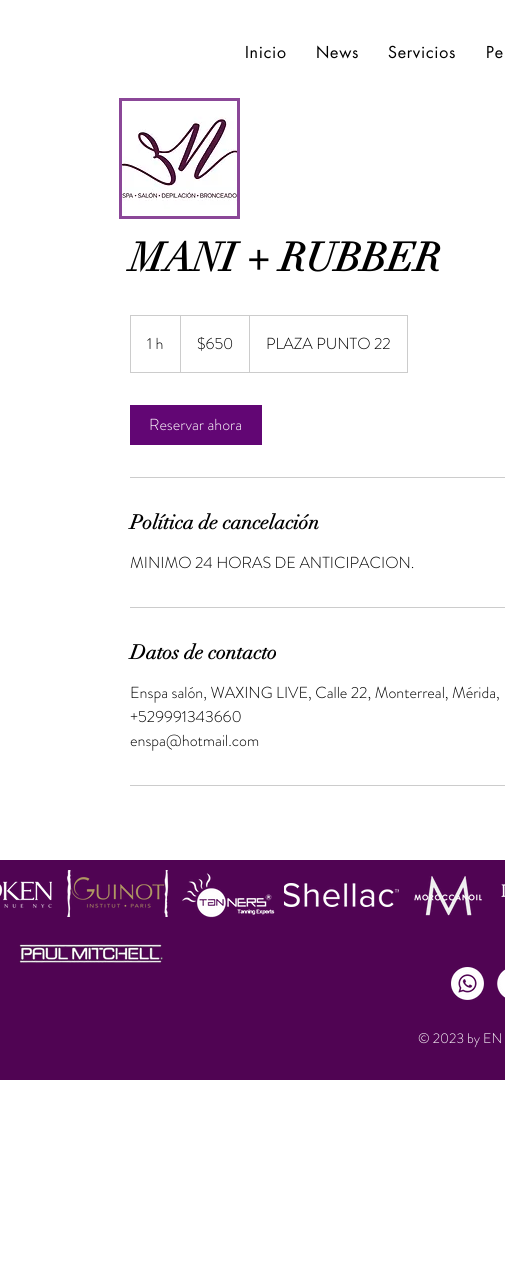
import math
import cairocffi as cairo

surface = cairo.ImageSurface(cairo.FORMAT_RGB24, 505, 1273)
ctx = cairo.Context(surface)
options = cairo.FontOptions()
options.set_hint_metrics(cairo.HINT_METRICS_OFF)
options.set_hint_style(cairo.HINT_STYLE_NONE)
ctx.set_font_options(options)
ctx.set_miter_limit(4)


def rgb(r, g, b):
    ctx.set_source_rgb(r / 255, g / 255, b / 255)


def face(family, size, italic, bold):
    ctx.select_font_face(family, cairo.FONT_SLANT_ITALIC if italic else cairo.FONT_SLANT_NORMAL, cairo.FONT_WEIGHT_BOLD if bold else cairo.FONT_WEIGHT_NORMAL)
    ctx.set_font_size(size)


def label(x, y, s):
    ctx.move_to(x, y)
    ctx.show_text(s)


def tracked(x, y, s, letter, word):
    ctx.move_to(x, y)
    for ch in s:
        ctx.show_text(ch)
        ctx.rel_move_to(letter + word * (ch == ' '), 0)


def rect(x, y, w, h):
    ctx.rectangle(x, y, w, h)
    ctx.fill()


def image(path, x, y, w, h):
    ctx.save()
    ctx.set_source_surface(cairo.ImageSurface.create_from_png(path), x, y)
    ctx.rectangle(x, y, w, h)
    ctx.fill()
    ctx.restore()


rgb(255, 255, 255)
ctx.paint()
face('futura', 16, 0, 0)
rgb(0, 0, 0)
tracked(245, 58, 'Inicio', 0.75, 0)
tracked(316, 58, 'News', 0.75, 0)
tracked(388, 58, 'Servicios', 0.75, 0)
tracked(486, 58, 'Pe', 0.75, 0)
ctx.rectangle(120.5, 99.5, 118, 118)
rgb(139, 71, 152)
ctx.set_line_width(3)
ctx.stroke()
image('image0.png', 122, 101, 115, 115)
face('didot', 40, 0, 1)
rgb(0, 0, 0)
label(130, 271, 'MANI + RUBBER')
ctx.rectangle(130.5, 315.5, 277, 57)
rgb(204, 204, 204)
ctx.set_line_width(1)
ctx.stroke()
face('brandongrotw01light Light', 16, 0, 0)
rgb(0, 0, 0)
label(147, 349, '1 h')
rgb(204, 204, 204)
ctx.new_path()
ctx.move_to(180, 372)
ctx.line_to(180, 315)
ctx.line_to(181, 316)
ctx.line_to(181, 372)
ctx.close_path()
ctx.fill()
rgb(0, 0, 0)
label(197, 349, '$650')
rgb(204, 204, 204)
ctx.new_path()
ctx.move_to(249, 372)
ctx.line_to(249, 315)
ctx.line_to(250, 316)
ctx.line_to(250, 372)
ctx.close_path()
ctx.fill()
rgb(0, 0, 0)
label(266, 349, 'PLAZA PUNTO 22')
rgb(98, 6, 116)
rect(130, 405, 132, 40)
rgb(255, 255, 255)
label(149, 430, 'Reservar ahora')
rgb(204, 204, 204)
rect(130, 477, 375, 1)
face('didot', 20, 0, 1)
rgb(0, 0, 0)
label(130, 529, 'Política de cancelación')
face('brandongrotw01light Light', 16, 0, 0)
label(130, 568, 'MINIMO 24 HORAS DE ANTICIPACION.')
rgb(204, 204, 204)
rect(130, 607, 375, 1)
face('didot', 20, 0, 1)
rgb(0, 0, 0)
label(130, 659, 'Datos de contacto')
face('brandongrotw01light Light', 16, 0, 0)
label(130, 698, 'Enspa salón, WAXING LIVE, Calle 22, Monterreal, Mérida,')
label(130, 722, '+529991343660')
label(130, 746, 'enspa@hotmail.com')
rgb(204, 204, 204)
rect(130, 785, 375, 1)
rgb(80, 4, 83)
rect(0, 860, 505, 220)
image('image1.png', 0, 881, 52, 27)
image('image2.png', 67, 870, 102, 47)
image('image3.png', 182, 873, 93, 45)
image('image4.png', 284, 883, 115, 24)
image('image5.png', 414, 876, 68, 40)
image('image6.png', 501, 884, 4, 13)
image('image7.png', 19, 944, 144, 19)
image('image8.png', 451, 967, 33, 33)
image('image9.png', 497, 969, 8, 29)
face('brandongrotw01light Light', 14, 0, 0)
rgb(255, 255, 255)
label(418, 1043, '© 2023 by EN')
surface.write_to_png('render.png')
